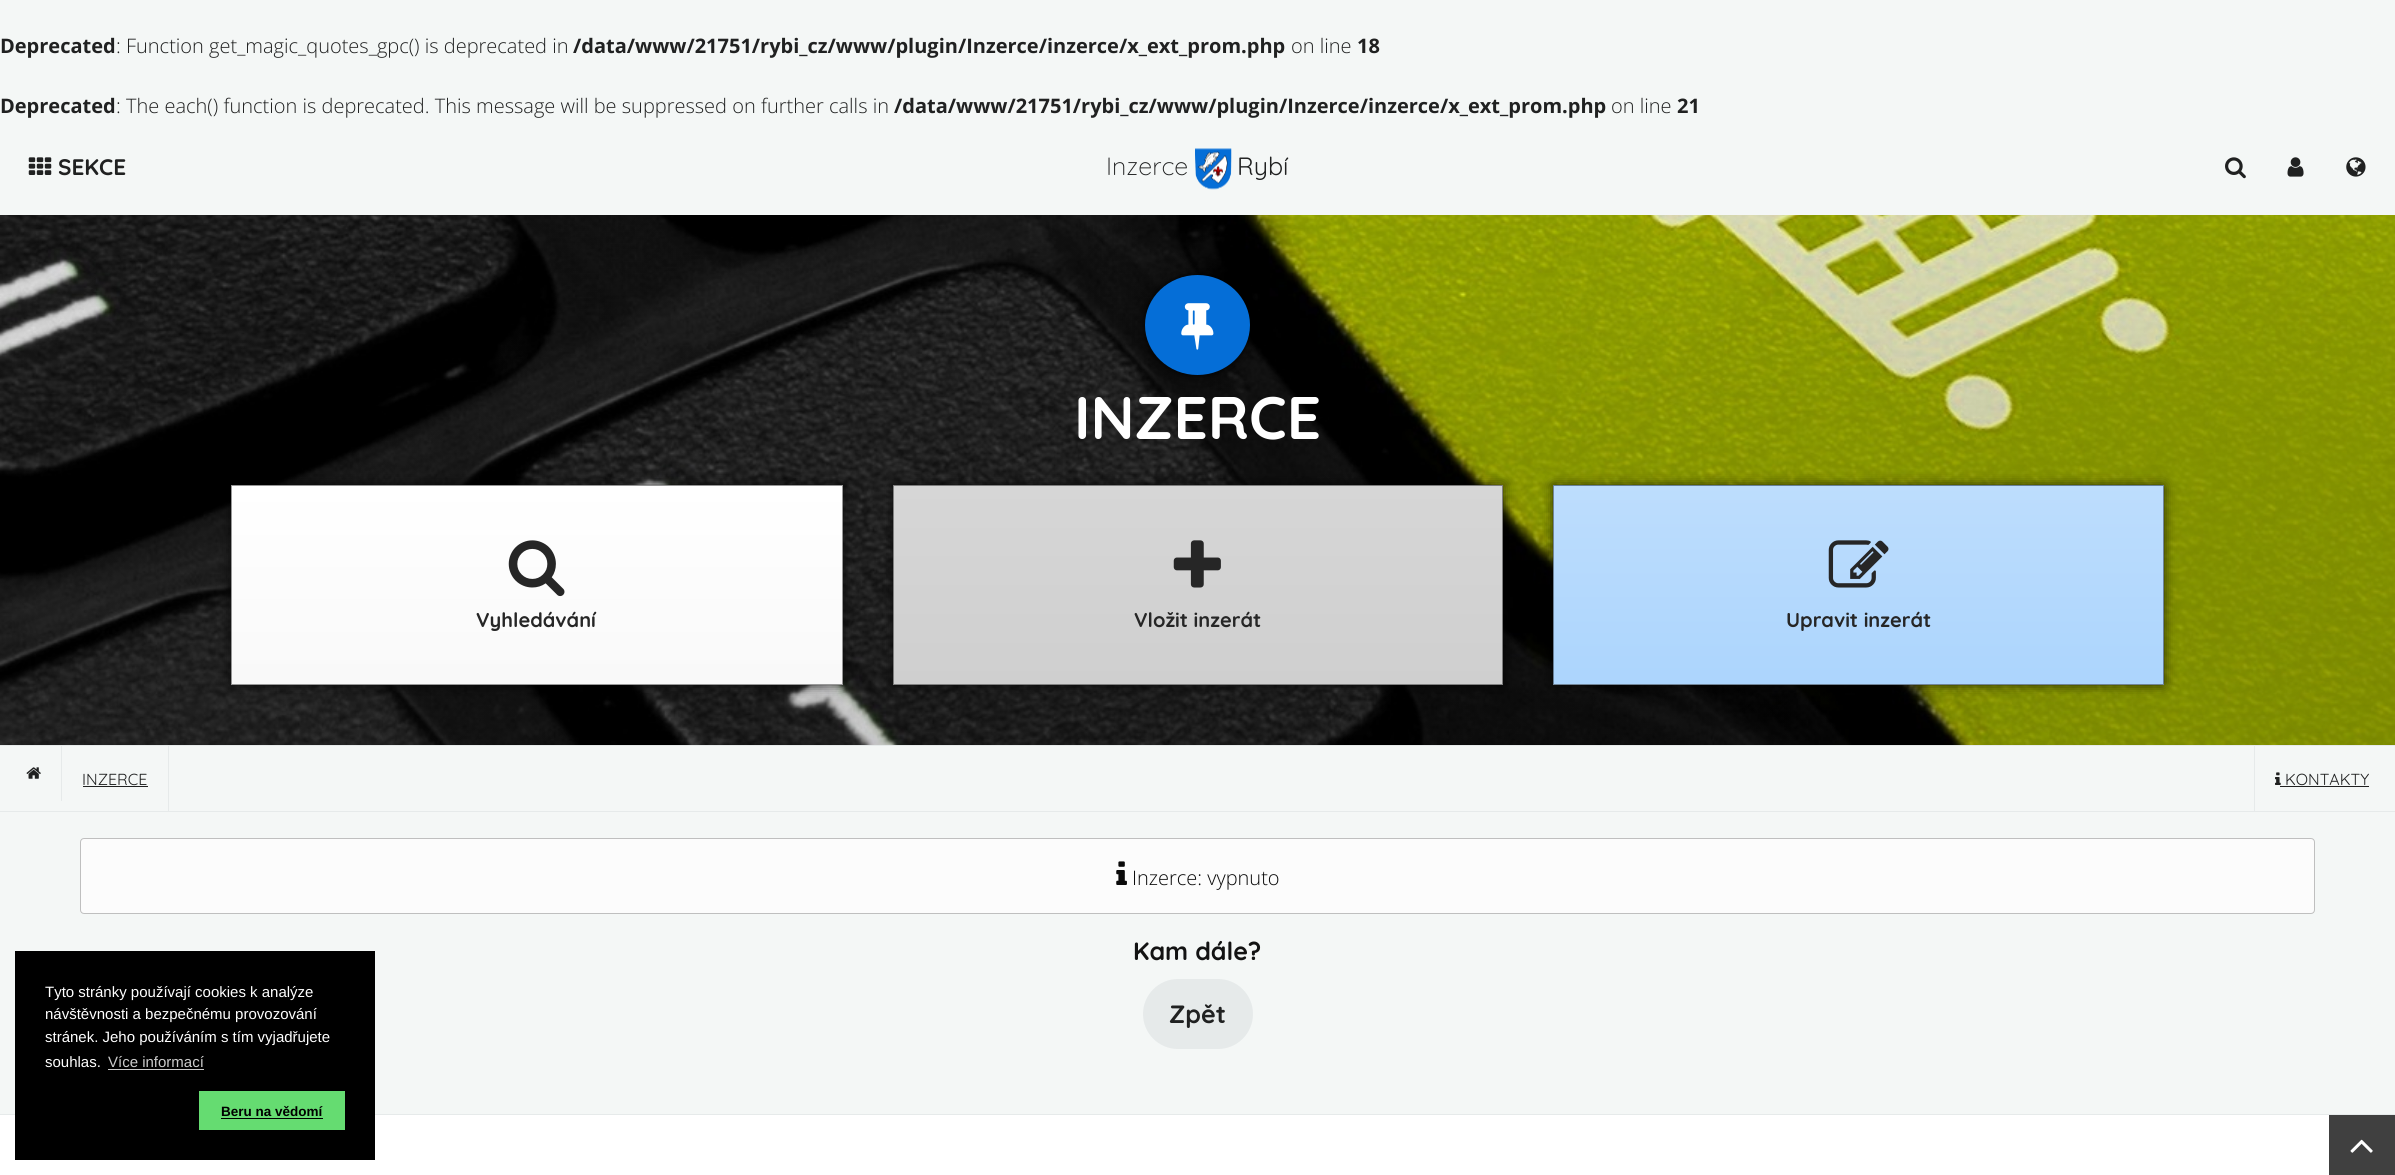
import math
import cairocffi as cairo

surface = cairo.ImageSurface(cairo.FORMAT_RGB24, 2395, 1175)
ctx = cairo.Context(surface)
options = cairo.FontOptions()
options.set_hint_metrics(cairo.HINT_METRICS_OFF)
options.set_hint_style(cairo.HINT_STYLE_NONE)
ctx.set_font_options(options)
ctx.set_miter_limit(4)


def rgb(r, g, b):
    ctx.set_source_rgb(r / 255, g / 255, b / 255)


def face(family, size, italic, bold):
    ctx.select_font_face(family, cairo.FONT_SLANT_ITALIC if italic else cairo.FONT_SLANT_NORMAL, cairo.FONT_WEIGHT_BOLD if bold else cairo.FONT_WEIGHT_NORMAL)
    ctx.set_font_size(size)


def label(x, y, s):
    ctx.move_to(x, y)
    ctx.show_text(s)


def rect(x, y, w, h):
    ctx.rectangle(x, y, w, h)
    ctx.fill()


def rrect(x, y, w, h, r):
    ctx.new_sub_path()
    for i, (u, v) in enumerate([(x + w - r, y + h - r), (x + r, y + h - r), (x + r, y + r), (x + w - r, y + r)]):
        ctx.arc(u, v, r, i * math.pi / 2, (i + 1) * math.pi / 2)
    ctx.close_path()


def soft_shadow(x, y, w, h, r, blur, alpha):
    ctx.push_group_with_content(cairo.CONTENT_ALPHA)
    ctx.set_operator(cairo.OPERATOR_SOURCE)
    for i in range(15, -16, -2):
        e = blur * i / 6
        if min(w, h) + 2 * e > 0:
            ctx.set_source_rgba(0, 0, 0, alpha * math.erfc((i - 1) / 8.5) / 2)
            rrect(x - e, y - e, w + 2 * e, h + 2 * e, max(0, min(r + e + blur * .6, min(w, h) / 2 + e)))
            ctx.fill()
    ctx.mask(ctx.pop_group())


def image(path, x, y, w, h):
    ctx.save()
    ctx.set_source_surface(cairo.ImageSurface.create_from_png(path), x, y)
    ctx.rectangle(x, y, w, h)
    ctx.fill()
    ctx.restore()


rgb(244, 247, 246)
ctx.paint()
face('Open Sans', 20, 0, 1)
rgb(32, 33, 33)
label(0, 53, 'Deprecated')
face('Open Sans Light', 20, 0, 0)
label(116, 53, ': Function get_magic_quotes_gpc() is deprecated in')
face('Open Sans', 20, 0, 1)
label(573, 53, '/data/www/21751/rybi_cz/www/plugin/Inzerce/inzerce/x_ext_prom.php')
face('Open Sans Light', 20, 0, 0)
label(1291, 53, 'on line')
face('Open Sans', 20, 0, 1)
label(1357, 53, '18')
label(0, 113, 'Deprecated')
face('Open Sans Light', 20, 0, 0)
label(116, 113, ': The each() function is deprecated. This message will be suppressed on further calls in')
face('Open Sans', 20, 0, 1)
label(894, 113, '/data/www/21751/rybi_cz/www/plugin/Inzerce/inzerce/x_ext_prom.php')
face('Open Sans Light', 20, 0, 0)
label(1611, 113, 'on line')
face('Open Sans', 20, 0, 1)
label(1677, 113, '21')
image('image0.png', 28, 157, 24, 18)
face('Quicksand', 22.5, 0, 1)
label(58, 175, 'SEKCE')
face('Quicksand Light', 25, 0, 0)
label(1106, 175, 'Inzerce')
image('image1.png', 1195, 148, 37, 42)
face('Quicksand', 25, 0, 0)
label(1237, 175, 'Rybí')
image('image2.png', 2225, 157, 21, 22)
image('image3.png', 2287, 157, 17, 20)
image('image4.png', 2346, 157, 20, 20)
image('image5.png', 0, 215, 2395, 530)
rgb(0, 0, 0)
soft_shadow(1145, 275, 105, 100, 50, 15.5, 0.5)
soft_shadow(1145, 275, 105, 100, 50, 3, 0.75)
rgb(5, 110, 215)
ctx.new_path()
ctx.move_to(1197.5, 275)
ctx.curve_to(1226.5, 275, 1250, 297.5, 1250, 325)
ctx.curve_to(1250, 352.5, 1226.5, 375, 1197.5, 375)
ctx.curve_to(1168.5, 375, 1145, 352.5, 1145, 325)
ctx.curve_to(1145, 297.5, 1168.5, 275, 1197.5, 275)
ctx.close_path()
ctx.fill()
image('image6.png', 1181, 303, 33, 47)
face('Quicksand', 60, 0, 1)
rgb(255, 255, 255)
label(1074, 439, 'INZERCE')
rgb(0, 0, 0)
soft_shadow(231, 485, 612, 200, 0, 6, 0.7)
gradient = cairo.LinearGradient(537, 289, 537, 486)
gradient.add_color_stop_rgba(0, 1, 1, 1, 1)
gradient.add_color_stop_rgba(1, 0.976, 0.976, 0.976, 1)
ctx.set_source(gradient)
rect(231, 485, 612, 1)
gradient = cairo.LinearGradient(537, 486, 537, 684)
gradient.add_color_stop_rgba(0, 1, 1, 1, 1)
gradient.add_color_stop_rgba(1, 0.976, 0.976, 0.976, 1)
ctx.set_source(gradient)
rect(231, 486, 612, 198)
gradient = cairo.LinearGradient(537, 684, 537, 881)
gradient.add_color_stop_rgba(0, 1, 1, 1, 1)
gradient.add_color_stop_rgba(1, 0.976, 0.976, 0.976, 1)
ctx.set_source(gradient)
rect(231, 684, 612, 1)
ctx.rectangle(231.5, 485.5, 611, 199)
ctx.set_source_rgba(0, 0, 0, 0.4)
ctx.set_line_width(1)
ctx.stroke()
image('image7.png', 508, 540, 57, 57)
face('Quicksand', 20, 0, 1)
rgb(38, 38, 38)
label(476, 627, 'Vyhledávání')
rgb(0, 0, 0)
soft_shadow(893, 485, 610, 200, 0, 6, 0.7)
gradient = cairo.LinearGradient(1198, 289, 1198, 486)
gradient.add_color_stop_rgba(0, 0.839, 0.839, 0.839, 1)
gradient.add_color_stop_rgba(1, 0.812, 0.812, 0.812, 1)
ctx.set_source(gradient)
rect(893, 485, 610, 1)
gradient = cairo.LinearGradient(1198, 486, 1198, 684)
gradient.add_color_stop_rgba(0, 0.839, 0.839, 0.839, 1)
gradient.add_color_stop_rgba(1, 0.812, 0.812, 0.812, 1)
ctx.set_source(gradient)
rect(893, 486, 610, 198)
gradient = cairo.LinearGradient(1198, 684, 1198, 881)
gradient.add_color_stop_rgba(0, 0.839, 0.839, 0.839, 1)
gradient.add_color_stop_rgba(1, 0.812, 0.812, 0.812, 1)
ctx.set_source(gradient)
rect(893, 684, 610, 1)
ctx.rectangle(893.5, 485.5, 609, 199)
ctx.set_source_rgba(0, 0, 0, 0.4)
ctx.stroke()
image('image8.png', 1173, 540, 48, 48)
rgb(38, 38, 38)
label(1134, 627, 'Vložit inzerát')
rgb(0, 0, 0)
soft_shadow(1553, 485, 611, 200, 0, 6, 0.7)
gradient = cairo.LinearGradient(1858, 289, 1858, 486)
gradient.add_color_stop_rgba(0, 0.741, 0.867, 0.992, 1)
gradient.add_color_stop_rgba(1, 0.675, 0.835, 0.992, 1)
ctx.set_source(gradient)
rect(1553, 485, 611, 1)
gradient = cairo.LinearGradient(1858, 486, 1858, 684)
gradient.add_color_stop_rgba(0, 0.741, 0.867, 0.992, 1)
gradient.add_color_stop_rgba(1, 0.675, 0.835, 0.992, 1)
ctx.set_source(gradient)
rect(1553, 486, 611, 198)
gradient = cairo.LinearGradient(1858, 684, 1858, 881)
gradient.add_color_stop_rgba(0, 0.741, 0.867, 0.992, 1)
gradient.add_color_stop_rgba(1, 0.675, 0.835, 0.992, 1)
ctx.set_source(gradient)
rect(1553, 684, 611, 1)
ctx.rectangle(1553.5, 485.5, 610, 199)
ctx.set_source_rgba(0, 0, 0, 0.4)
ctx.stroke()
image('image9.png', 1828, 540, 61, 48)
rgb(38, 38, 38)
label(1786, 627, 'Upravit inzerát')
rgb(230, 234, 234)
rect(0, 745, 2395, 1)
rect(0, 811, 2395, 1)
rect(61, 746, 1, 55)
image('image10.png', 26, 767, 15, 12)
rect(168, 746, 1, 65)
face('Quicksand', 16, 0, 0)
rgb(32, 33, 33)
label(82, 785, 'INZERCE')
rect(83, 786, 65, 1)
rgb(230, 234, 234)
rect(2254, 746, 1, 65)
image('image11.png', 2275, 772, 6, 13)
rgb(32, 33, 33)
label(2285, 785, 'KONTAKTY')
rect(2280, 786, 89, 1)
rgb(252, 252, 252)
rrect(80, 838, 2235, 76, 4)
ctx.fill()
rrect(80.5, 838.5, 2234, 75, 3.5)
ctx.set_source_rgba(0.039, 0.039, 0.039, 0.25)
ctx.stroke()
image('image12.png', 1116, 861, 11, 24)
face('Open Sans Light', 20, 0, 0)
rgb(10, 10, 10)
label(1132, 885, 'Inzerce: vypnuto')
face('Quicksand', 25, 0, 1)
rgb(19, 19, 19)
label(1133, 960, 'Kam dále?')
rgb(230, 234, 234)
rrect(1143, 979, 110, 70, 35)
ctx.fill()
rgb(32, 33, 33)
label(1169, 1023, 'Zpět')
rgb(255, 255, 255)
rect(0, 1115, 2329, 60)
rgb(230, 234, 234)
rect(0, 1114, 2395, 1)
rgb(0, 0, 0)
rect(15, 951, 360, 209)
face('Liberation Sans', 15, 0, 0)
rgb(255, 255, 255)
label(45, 997, 'Tyto stránky používají cookies k analýze')
label(45, 1019, 'návštěvnosti a bezpečnému provozování')
label(45, 1042, 'stránek. Jeho používáním s tím vyjadřujete')
label(45, 1067, 'souhlas.')
rgb(204, 204, 204)
label(108, 1067, 'Více informací')
rect(108, 1069, 96, 1)
rgb(101, 220, 113)
rect(199, 1091, 146, 39)
face('Liberation Sans', 13.5, 0, 1)
rgb(0, 0, 0)
label(221, 1116, 'Beru na vědomí')
rect(221, 1118, 102, 1)
rgb(64, 64, 64)
rect(2329, 1115, 66, 60)
image('image13.png', 2350, 1139, 23, 14)
surface.write_to_png('render.png')
